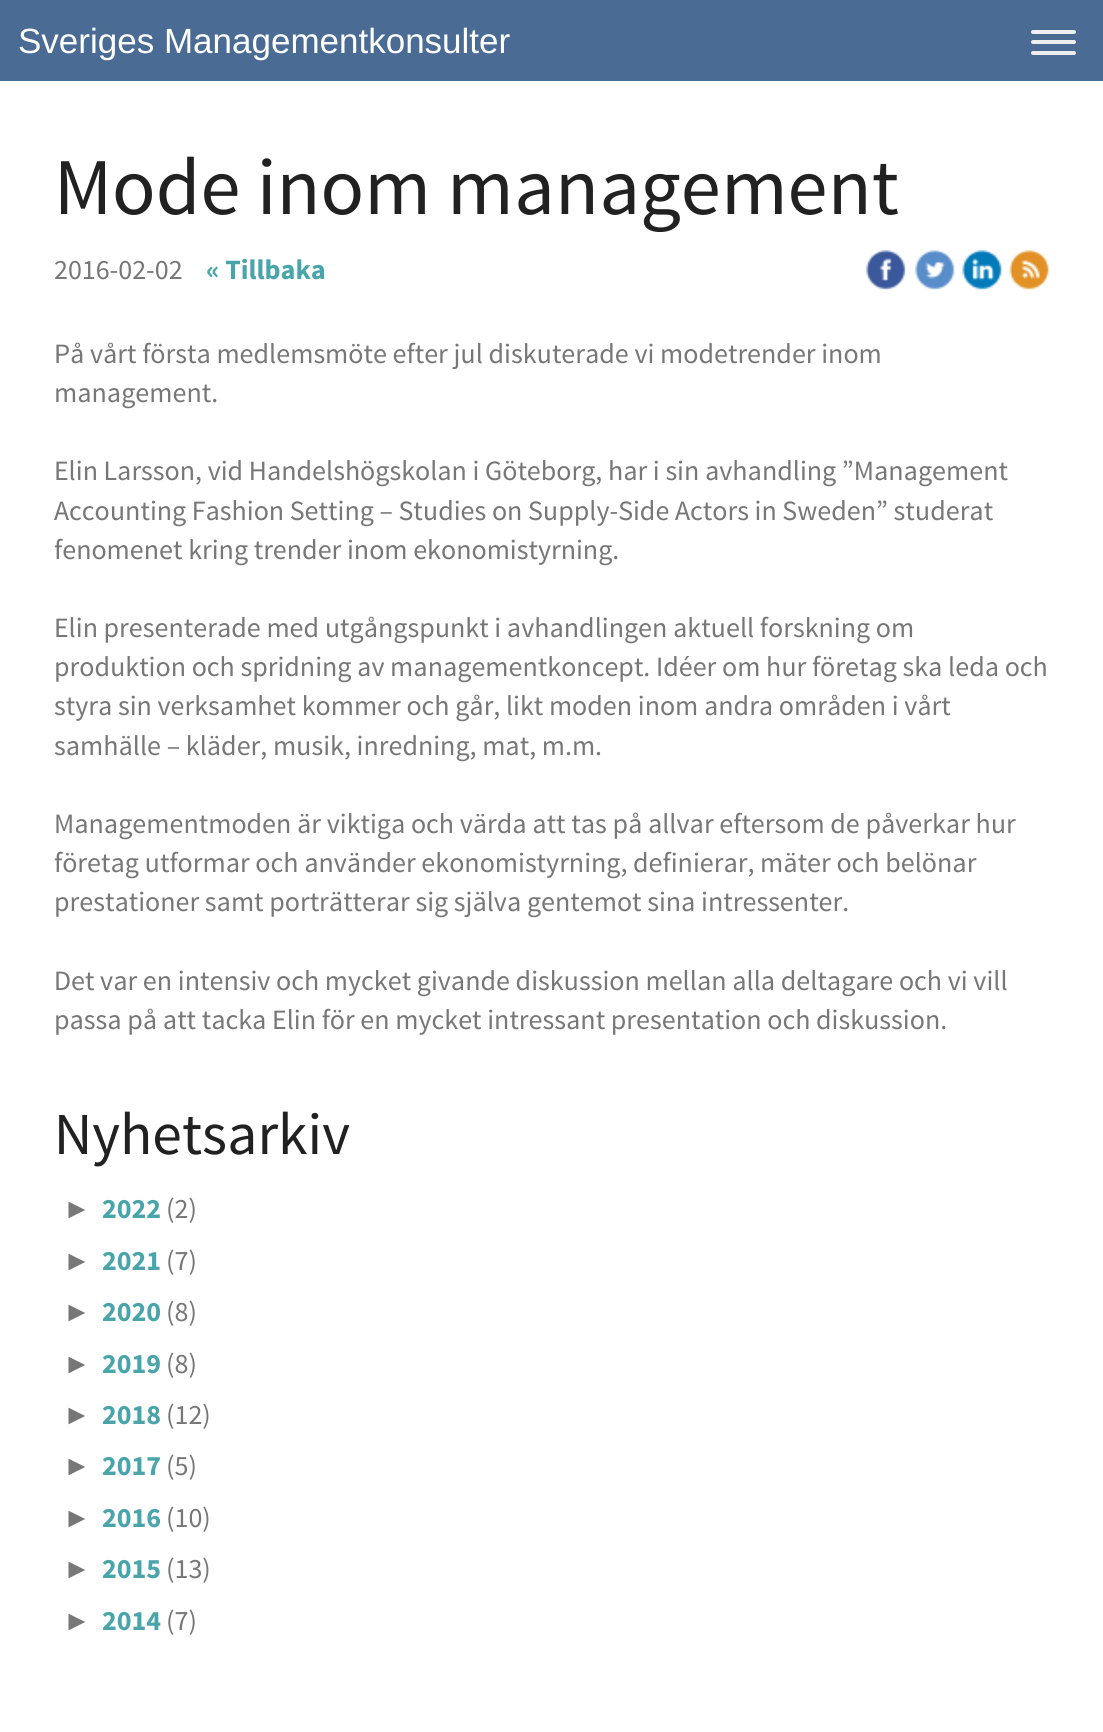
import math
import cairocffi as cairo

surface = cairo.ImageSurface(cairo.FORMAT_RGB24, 1103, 1732)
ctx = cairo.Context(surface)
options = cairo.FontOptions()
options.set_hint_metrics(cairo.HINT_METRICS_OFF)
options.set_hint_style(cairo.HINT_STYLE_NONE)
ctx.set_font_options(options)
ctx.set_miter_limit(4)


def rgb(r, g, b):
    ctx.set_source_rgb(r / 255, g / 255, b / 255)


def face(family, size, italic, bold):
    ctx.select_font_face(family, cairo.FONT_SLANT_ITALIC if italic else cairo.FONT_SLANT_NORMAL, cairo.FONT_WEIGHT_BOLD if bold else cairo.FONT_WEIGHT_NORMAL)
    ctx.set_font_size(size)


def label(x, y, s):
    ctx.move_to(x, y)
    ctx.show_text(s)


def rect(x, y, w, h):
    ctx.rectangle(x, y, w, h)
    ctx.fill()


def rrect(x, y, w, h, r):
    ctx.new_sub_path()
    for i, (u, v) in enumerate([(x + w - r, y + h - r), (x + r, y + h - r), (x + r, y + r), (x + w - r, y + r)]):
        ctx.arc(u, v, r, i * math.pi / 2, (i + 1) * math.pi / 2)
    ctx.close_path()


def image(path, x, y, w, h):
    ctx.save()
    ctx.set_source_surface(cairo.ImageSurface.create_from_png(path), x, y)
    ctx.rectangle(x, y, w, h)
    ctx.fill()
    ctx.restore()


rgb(255, 255, 255)
ctx.paint()
rgb(74, 107, 148)
rect(0, 0, 1103, 81)
face('Liberation Sans', 35, 0, 0)
rgb(255, 255, 255)
label(18, 53, 'Sveriges Managementkonsulter')
rgb(238, 238, 238)
rrect(1031, 30, 45, 4, 2)
ctx.fill()
rrect(1031, 40, 45, 4, 2)
ctx.fill()
rrect(1031, 51, 45, 4, 2)
ctx.fill()
face('Source Sans Pro', 80.5, 0, 0)
rgb(33, 33, 33)
label(54, 214, 'Mode inom management')
face('Source Sans Pro', 28, 0, 0)
rgb(119, 119, 119)
label(54, 279, '2016-02-02')
face('Source Sans Pro', 28, 0, 1)
rgb(74, 165, 171)
label(206, 279, '« Tillbaka')
image('image0.png', 865, 249, 41, 41)
image('image1.png', 914, 249, 41, 41)
image('image2.png', 962, 249, 40, 41)
image('image3.png', 1009, 249, 40, 41)
face('Source Sans Pro', 28, 0, 0)
rgb(119, 119, 119)
label(54, 363, 'På vårt första medlemsmöte efter jul diskuterade vi modetrender inom')
label(54, 402, 'management.')
label(54, 480, 'Elin Larsson, vid Handelshögskolan i Göteborg, har i sin avhandling ”Management')
label(54, 520, 'Accounting Fashion Setting – Studies on Supply-Side Actors in Sweden” studerat')
label(54, 559, 'fenomenet kring trender inom ekonomistyrning.')
label(54, 637, 'Elin presenterade med utgångspunkt i avhandlingen aktuell forskning om')
label(54, 676, 'produktion och spridning av managementkoncept. Idéer om hur företag ska leda och')
label(54, 715, 'styra sin verksamhet kommer och går, likt moden inom andra områden i vårt')
label(54, 755, 'samhälle – kläder, musik, inredning, mat, m.m.')
label(54, 833, 'Managementmoden är viktiga och värda att tas på allvar eftersom de påverkar hur')
label(54, 872, 'företag utformar och använder ekonomistyrning, definierar, mäter och belönar')
label(54, 911, 'prestationer samt porträtterar sig själva gentemot sina intressenter.')
label(54, 990, 'Det var en intensiv och mycket givande diskussion mellan alla deltagare och vi vill')
label(54, 1029, 'passa på att tacka Elin för en mycket intressant presentation och diskussion.')
face('Source Sans Pro', 59.5, 0, 0)
rgb(33, 33, 33)
label(54, 1154, 'Nyhetsarkiv')
face('Liberation Sans', 28, 0, 0)
rgb(119, 119, 119)
label(63, 1218, '►')
face('Source Sans Pro', 28, 0, 1)
rgb(74, 165, 171)
label(102, 1218, '2022')
face('Source Sans Pro', 28, 0, 0)
rgb(119, 119, 119)
label(166, 1218, '(2)')
face('Liberation Sans', 28, 0, 0)
label(63, 1270, '►')
face('Source Sans Pro', 28, 0, 1)
rgb(74, 165, 171)
label(102, 1270, '2021')
face('Source Sans Pro', 28, 0, 0)
rgb(119, 119, 119)
label(166, 1270, '(7)')
face('Liberation Sans', 28, 0, 0)
label(63, 1321, '►')
face('Source Sans Pro', 28, 0, 1)
rgb(74, 165, 171)
label(102, 1321, '2020')
face('Source Sans Pro', 28, 0, 0)
rgb(119, 119, 119)
label(166, 1321, '(8)')
face('Liberation Sans', 28, 0, 0)
label(63, 1373, '►')
face('Source Sans Pro', 28, 0, 1)
rgb(74, 165, 171)
label(102, 1373, '2019')
face('Source Sans Pro', 28, 0, 0)
rgb(119, 119, 119)
label(166, 1373, '(8)')
face('Liberation Sans', 28, 0, 0)
label(63, 1424, '►')
face('Source Sans Pro', 28, 0, 1)
rgb(74, 165, 171)
label(102, 1424, '2018')
face('Source Sans Pro', 28, 0, 0)
rgb(119, 119, 119)
label(166, 1424, '(12)')
face('Liberation Sans', 28, 0, 0)
label(63, 1475, '►')
face('Source Sans Pro', 28, 0, 1)
rgb(74, 165, 171)
label(102, 1475, '2017')
face('Source Sans Pro', 28, 0, 0)
rgb(119, 119, 119)
label(166, 1475, '(5)')
face('Liberation Sans', 28, 0, 0)
label(63, 1527, '►')
face('Source Sans Pro', 28, 0, 1)
rgb(74, 165, 171)
label(102, 1527, '2016')
face('Source Sans Pro', 28, 0, 0)
rgb(119, 119, 119)
label(166, 1527, '(10)')
face('Liberation Sans', 28, 0, 0)
label(63, 1578, '►')
face('Source Sans Pro', 28, 0, 1)
rgb(74, 165, 171)
label(102, 1578, '2015')
face('Source Sans Pro', 28, 0, 0)
rgb(119, 119, 119)
label(166, 1578, '(13)')
face('Liberation Sans', 28, 0, 0)
label(63, 1630, '►')
face('Source Sans Pro', 28, 0, 1)
rgb(74, 165, 171)
label(102, 1630, '2014')
face('Source Sans Pro', 28, 0, 0)
rgb(119, 119, 119)
label(166, 1630, '(7)')
surface.write_to_png('render.png')
